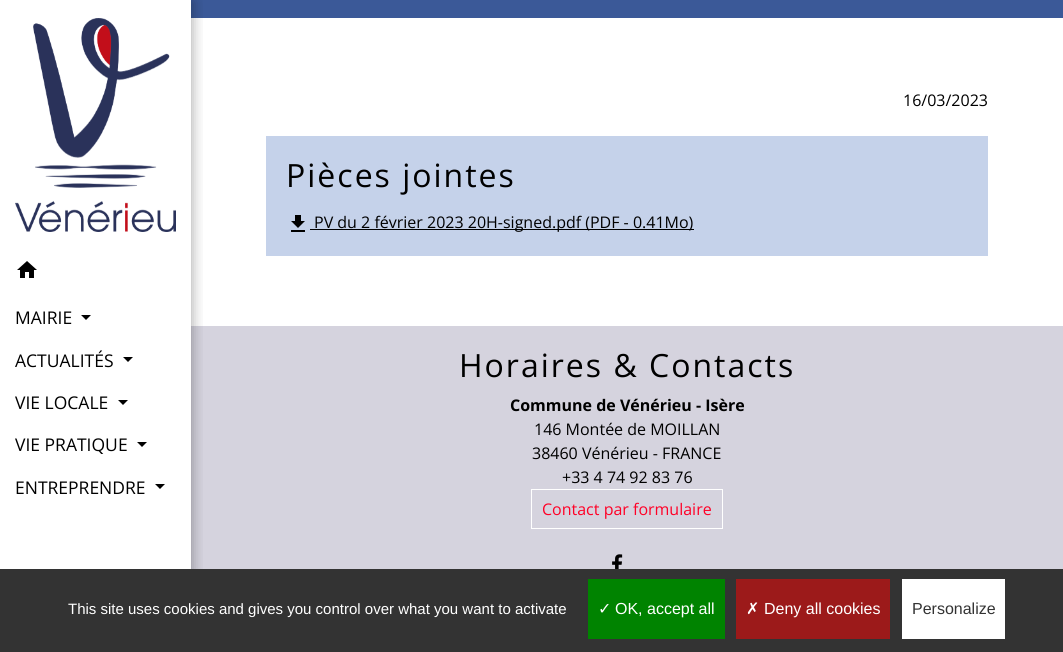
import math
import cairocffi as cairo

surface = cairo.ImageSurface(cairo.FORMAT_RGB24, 1063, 652)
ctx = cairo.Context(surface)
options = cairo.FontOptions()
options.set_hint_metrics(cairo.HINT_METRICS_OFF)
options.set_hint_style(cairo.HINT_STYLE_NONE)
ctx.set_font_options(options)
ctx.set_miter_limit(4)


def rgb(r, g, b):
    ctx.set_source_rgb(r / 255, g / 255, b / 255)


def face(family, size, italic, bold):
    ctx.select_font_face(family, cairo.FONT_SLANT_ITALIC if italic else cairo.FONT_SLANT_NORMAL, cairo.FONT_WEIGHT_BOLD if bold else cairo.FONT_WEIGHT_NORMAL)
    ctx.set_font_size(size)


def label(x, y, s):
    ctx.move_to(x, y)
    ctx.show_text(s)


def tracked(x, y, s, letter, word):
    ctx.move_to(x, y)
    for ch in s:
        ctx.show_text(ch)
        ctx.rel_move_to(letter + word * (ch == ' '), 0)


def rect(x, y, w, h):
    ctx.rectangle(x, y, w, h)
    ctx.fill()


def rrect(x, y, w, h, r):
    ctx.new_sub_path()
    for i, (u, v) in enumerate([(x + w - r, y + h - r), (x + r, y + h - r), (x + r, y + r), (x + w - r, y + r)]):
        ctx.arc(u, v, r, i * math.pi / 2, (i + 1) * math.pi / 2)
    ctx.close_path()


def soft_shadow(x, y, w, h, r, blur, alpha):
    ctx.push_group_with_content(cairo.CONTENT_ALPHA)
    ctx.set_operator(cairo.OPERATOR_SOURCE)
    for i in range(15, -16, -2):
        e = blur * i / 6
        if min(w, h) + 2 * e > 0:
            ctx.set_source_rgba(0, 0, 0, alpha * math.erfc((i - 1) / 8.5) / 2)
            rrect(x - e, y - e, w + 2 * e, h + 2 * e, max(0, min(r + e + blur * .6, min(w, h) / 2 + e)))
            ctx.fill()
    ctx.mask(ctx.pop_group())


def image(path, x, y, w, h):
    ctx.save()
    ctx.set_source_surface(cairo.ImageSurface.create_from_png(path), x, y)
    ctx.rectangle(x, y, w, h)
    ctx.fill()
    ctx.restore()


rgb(255, 255, 255)
ctx.paint()
rgb(59, 89, 152)
rect(191, 0, 872, 18)
face('Open Sans', 16, 0, 0)
rgb(0, 0, 0)
label(903, 106, '16/03/2023')
rgb(197, 210, 234)
rect(266, 136, 722, 120)
face('Open Sans', 32, 0, 0)
rgb(0, 0, 0)
tracked(286, 187, 'Pièces jointes', 2, 0)
image('image0.png', 291, 215, 14, 17)
rect(310, 229, 384, 1)
face('Open Sans', 16, 0, 0)
label(314, 228, 'PV du 2 février 2023 20H-signed.pdf (PDF - 0.41Mo)')
rgb(213, 211, 222)
rect(191, 326, 872, 243)
ctx.save()
ctx.rectangle(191, 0, 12, 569)
ctx.clip()
rgb(0, 0, 0)
soft_shadow(2, 2, 191, 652, 0, 6.5, 0.3)
ctx.restore()
image('image1.png', 15, 18, 161, 214)
image('image2.png', 17, 261, 20, 17)
face('Open Sans', 17.5, 0, 0)
rgb(0, 0, 0)
label(15, 324, 'MAIRIE')
ctx.new_path()
ctx.move_to(81, 315)
ctx.line_to(91, 315)
ctx.line_to(86, 320)
ctx.close_path()
ctx.fill()
label(15, 367, 'ACTUALITÉS')
ctx.new_path()
ctx.move_to(123, 357)
ctx.line_to(133, 357)
ctx.line_to(128, 362)
ctx.close_path()
ctx.fill()
label(15, 409, 'VIE LOCALE')
ctx.new_path()
ctx.move_to(118, 400)
ctx.line_to(128, 400)
ctx.line_to(123, 405)
ctx.close_path()
ctx.fill()
label(15, 451, 'VIE PRATIQUE')
ctx.new_path()
ctx.move_to(137, 442)
ctx.line_to(147, 442)
ctx.line_to(142, 447)
ctx.close_path()
ctx.fill()
label(15, 494, 'ENTREPRENDRE')
ctx.new_path()
ctx.move_to(155, 484)
ctx.line_to(165, 484)
ctx.line_to(160, 489)
ctx.close_path()
ctx.fill()
face('Open Sans', 32, 0, 0)
tracked(459, 377, 'Horaires & Contacts', 2, 0)
face('Open Sans', 16, 0, 1)
label(510, 411, 'Commune de Vénérieu - Isère')
face('Open Sans', 16, 0, 0)
label(534, 435, '146 Montée de MOILLAN')
label(532, 459, '38460 Vénérieu - FRANCE')
label(562, 483, '+33 4 74 92 83 76')
ctx.rectangle(531.5, 489.5, 191, 39)
rgb(255, 255, 255)
ctx.set_line_width(1)
ctx.stroke()
rgb(255, 0, 38)
label(542, 515, 'Contact par formulaire')
image('image3.png', 612, 554, 11, 15)
rgb(51, 51, 51)
rect(0, 569, 1063, 83)
face('Liberation Sans', 15, 0, 0)
rgb(255, 255, 255)
label(68, 614, 'This site uses cookies and gives you control over what you want to activate')
rgb(0, 131, 0)
rect(588, 579, 137, 60)
face('DejaVu Sans', 16, 0, 0)
rgb(255, 255, 255)
label(598, 614, '✓')
face('Liberation Sans', 16, 0, 0)
label(615, 614, 'OK, accept all')
rgb(156, 26, 26)
rect(736, 579, 154, 60)
face('DejaVu Sans', 16, 0, 0)
rgb(255, 255, 255)
label(746, 614, '✗')
face('Liberation Sans', 16, 0, 0)
label(764, 614, 'Deny all cookies')
rect(902, 579, 103, 60)
rgb(51, 51, 51)
label(912, 614, 'Personalize')
surface.write_to_png('render.png')
